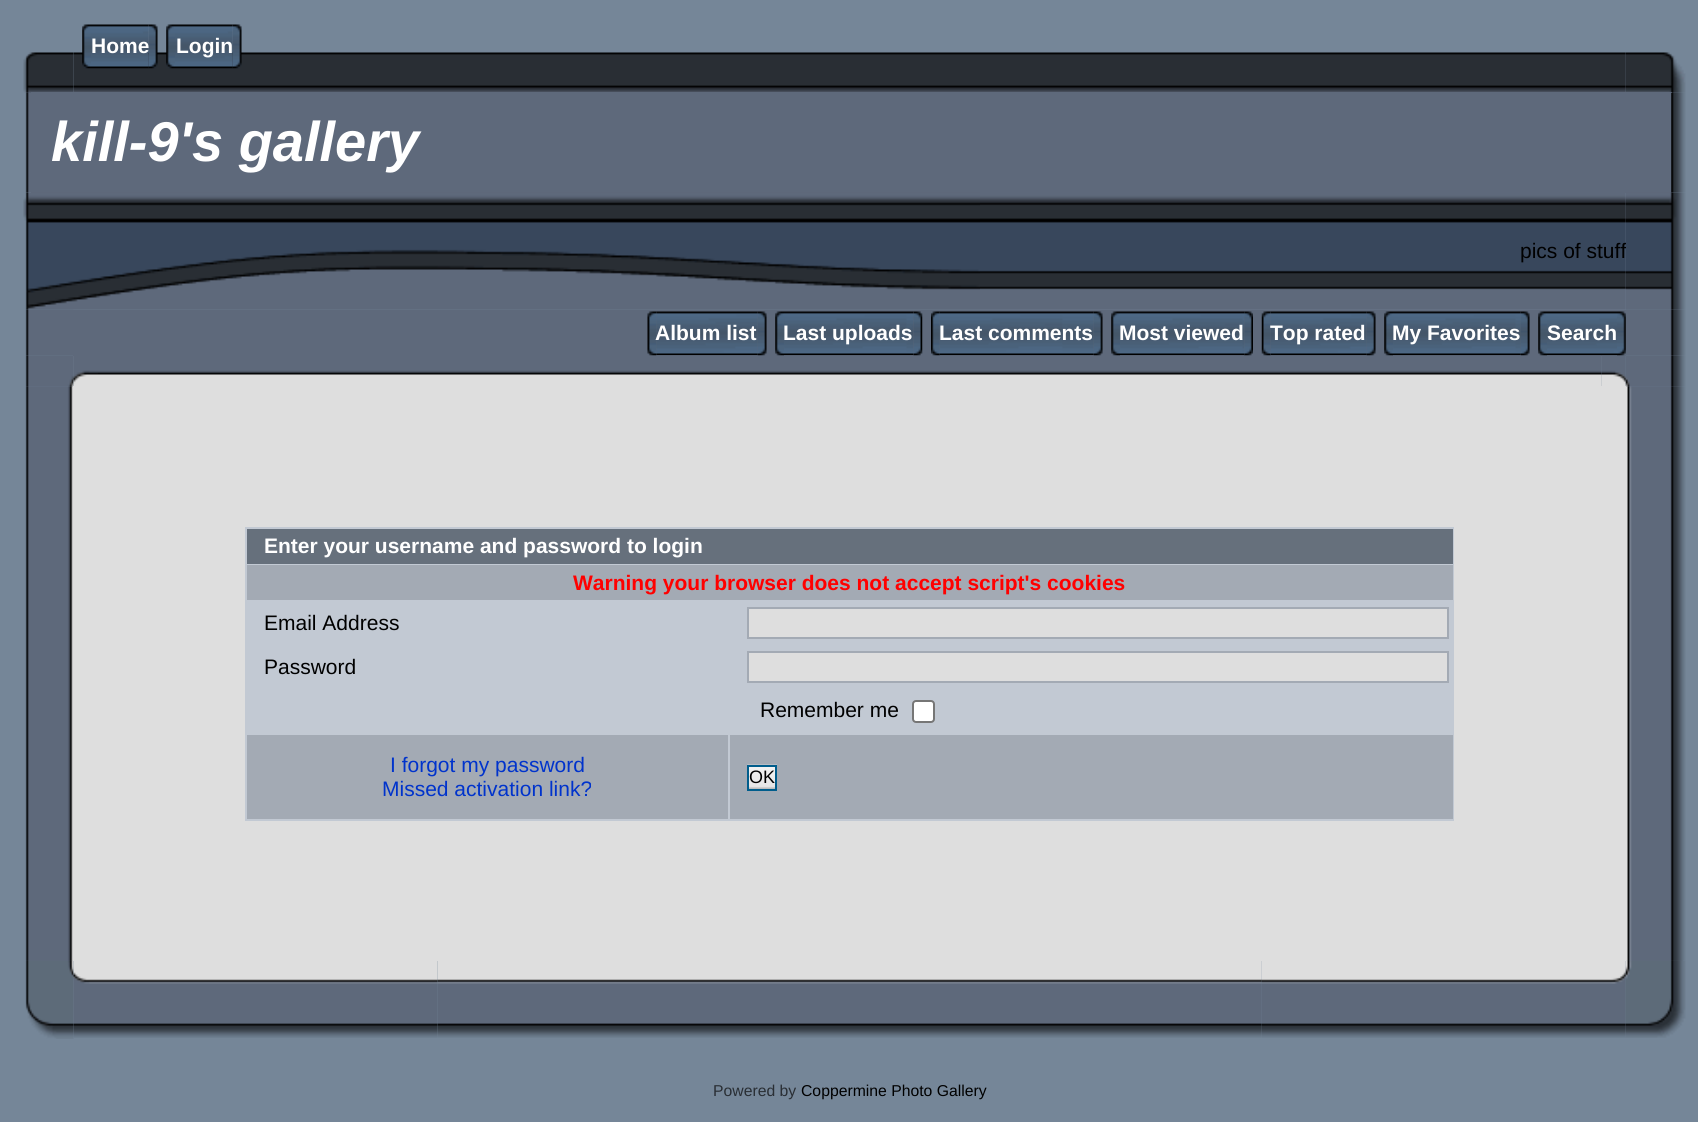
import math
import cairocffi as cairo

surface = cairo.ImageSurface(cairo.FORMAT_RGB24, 1698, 1122)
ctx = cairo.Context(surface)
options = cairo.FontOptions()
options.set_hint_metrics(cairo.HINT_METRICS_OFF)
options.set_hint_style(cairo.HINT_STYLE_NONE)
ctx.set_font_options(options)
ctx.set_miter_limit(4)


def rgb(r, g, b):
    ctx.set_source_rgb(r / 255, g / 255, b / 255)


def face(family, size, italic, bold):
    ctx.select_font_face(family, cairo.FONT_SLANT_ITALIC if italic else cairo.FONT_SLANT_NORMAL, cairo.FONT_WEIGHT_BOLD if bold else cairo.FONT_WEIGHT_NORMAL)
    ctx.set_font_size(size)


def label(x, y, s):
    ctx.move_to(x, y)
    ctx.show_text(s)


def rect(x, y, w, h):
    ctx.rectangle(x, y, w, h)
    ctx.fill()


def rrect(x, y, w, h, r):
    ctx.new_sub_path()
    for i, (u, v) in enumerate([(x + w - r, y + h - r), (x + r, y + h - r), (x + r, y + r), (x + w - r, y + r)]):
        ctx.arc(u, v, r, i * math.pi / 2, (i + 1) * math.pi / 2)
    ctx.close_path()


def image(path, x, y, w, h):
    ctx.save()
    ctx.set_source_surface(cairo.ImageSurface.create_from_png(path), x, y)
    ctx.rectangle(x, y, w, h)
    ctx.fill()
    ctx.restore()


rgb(117, 134, 152)
ctx.paint()
image('image6.png', 23, 52, 51, 41)
image('image0.png', 73, 52, 1553, 40)
image('image1.png', 82, 24, 9, 45)
image('image2.png', 91, 24, 58, 45)
face('Liberation Sans', 21, 0, 1)
rgb(255, 255, 255)
label(91, 53, 'Home')
image('image3.png', 148, 24, 10, 45)
image('image1.png', 166, 24, 9, 45)
image('image4.png', 175, 24, 58, 45)
label(176, 53, 'Login')
image('image5.png', 232, 24, 10, 45)
image('image7.png', 1625, 52, 61, 41)
image('image8.png', 25, 92, 6, 101)
rgb(94, 105, 123)
rect(31, 92, 1641, 101)
face('Liberation Sans', 56, 1, 1)
rgb(255, 255, 255)
label(51, 161, 'kill-9\'s gallery')
image('image9.png', 1671, 92, 15, 101)
image('image10.png', 23, 192, 957, 118)
image('image11.png', 980, 193, 646, 117)
image('image12.png', 1625, 192, 61, 118)
face('Liberation Sans', 21, 0, 0)
rgb(0, 0, 0)
label(1520, 258, 'pics of stuff')
image('image13.png', 25, 309, 49, 47)
rgb(94, 105, 123)
rect(73, 310, 1553, 46)
image('image15.png', 656, 311, 102, 45)
image('image18.png', 784, 311, 130, 45)
image('image21.png', 939, 311, 155, 45)
image('image23.png', 1120, 311, 125, 45)
image('image26.png', 1270, 311, 97, 45)
image('image29.png', 1393, 311, 128, 45)
image('image31.png', 1547, 311, 70, 45)
image('image36.png', 98, 355, 1504, 31)
image('image14.png', 647, 311, 10, 45)
face('Liberation Sans', 21, 0, 1)
rgb(255, 255, 255)
label(655, 340, 'Album list')
image('image16.png', 757, 311, 10, 45)
image('image17.png', 775, 311, 9, 45)
label(783, 340, 'Last uploads')
image('image19.png', 913, 311, 10, 45)
image('image20.png', 931, 311, 9, 45)
label(939, 340, 'Last comments')
image('image22.png', 1093, 311, 10, 45)
image('image17.png', 1111, 311, 9, 45)
label(1119, 340, 'Most viewed')
image('image24.png', 1244, 311, 9, 45)
image('image25.png', 1261, 311, 10, 45)
label(1270, 340, 'Top rated')
image('image27.png', 1366, 311, 10, 45)
image('image28.png', 1384, 311, 9, 45)
label(1392, 340, 'My Favorites')
image('image30.png', 1520, 311, 10, 45)
image('image17.png', 1538, 311, 9, 45)
label(1547, 340, 'Search')
image('image37.png', 1601, 355, 25, 31)
image('image33.png', 1626, 309, 60, 47)
image('image38.png', 1625, 355, 61, 32)
image('image32.png', 1617, 311, 9, 45)
image('image34.png', 25, 355, 49, 32)
image('image35.png', 73, 356, 25, 30)
image('image39.png', 25, 386, 48, 575)
rgb(222, 222, 222)
rect(73, 386, 1553, 575)
image('image44.png', 25, 960, 49, 79)
image('image40.png', 26, 386, 47, 575)
rgb(194, 201, 211)
rect(245, 527, 1209, 294)
rgb(102, 112, 124)
rect(247, 529, 1206, 35)
rgb(255, 255, 255)
label(264, 553, 'Enter your username and password to login')
rgb(163, 170, 180)
rect(247, 565, 1206, 35)
rgb(255, 0, 0)
label(573, 590, 'Warning your browser does not accept script\'s cookies')
face('Liberation Sans', 21, 0, 0)
rgb(0, 0, 0)
label(264, 630, 'Email Address')
rgb(222, 222, 222)
ctx.rectangle(748, 608, 700, 30)
ctx.fill_preserve()
rgb(163, 170, 180)
ctx.stroke()
rgb(0, 0, 0)
label(264, 674, 'Password')
rgb(222, 222, 222)
ctx.rectangle(748, 652, 700, 30)
ctx.fill_preserve()
rgb(163, 170, 180)
ctx.stroke()
rgb(0, 0, 0)
label(760, 717, 'Remember me')
rgb(255, 255, 255)
rrect(913, 701, 21, 21, 3)
ctx.fill_preserve()
rgb(118, 118, 118)
ctx.stroke()
rgb(163, 170, 180)
rect(247, 735, 481, 84)
rgb(0, 51, 204)
label(390, 772, 'I forgot my password')
label(382, 796, 'Missed activation link?')
rgb(163, 170, 180)
rect(730, 735, 723, 84)
image('image41.png', 747, 764, 30, 25)
ctx.rectangle(748, 766, 28, 24)
rgb(0, 93, 140)
ctx.stroke()
face('Liberation Sans', 18, 0, 0)
rgb(0, 0, 0)
label(749, 783, 'OK')
image('image42.png', 1626, 386, 60, 575)
image('image45.png', 73, 961, 365, 77)
image('image46.png', 437, 961, 825, 77)
image('image47.png', 1261, 961, 365, 77)
image('image48.png', 1625, 960, 61, 78)
image('image43.png', 1626, 386, 57, 575)
face('Liberation Sans', 15.75, 0, 0)
rgb(41, 46, 52)
label(713, 1096, 'Powered by')
rgb(0, 0, 0)
label(801, 1096, 'Coppermine Photo Gallery')
surface.write_to_png('render.png')
